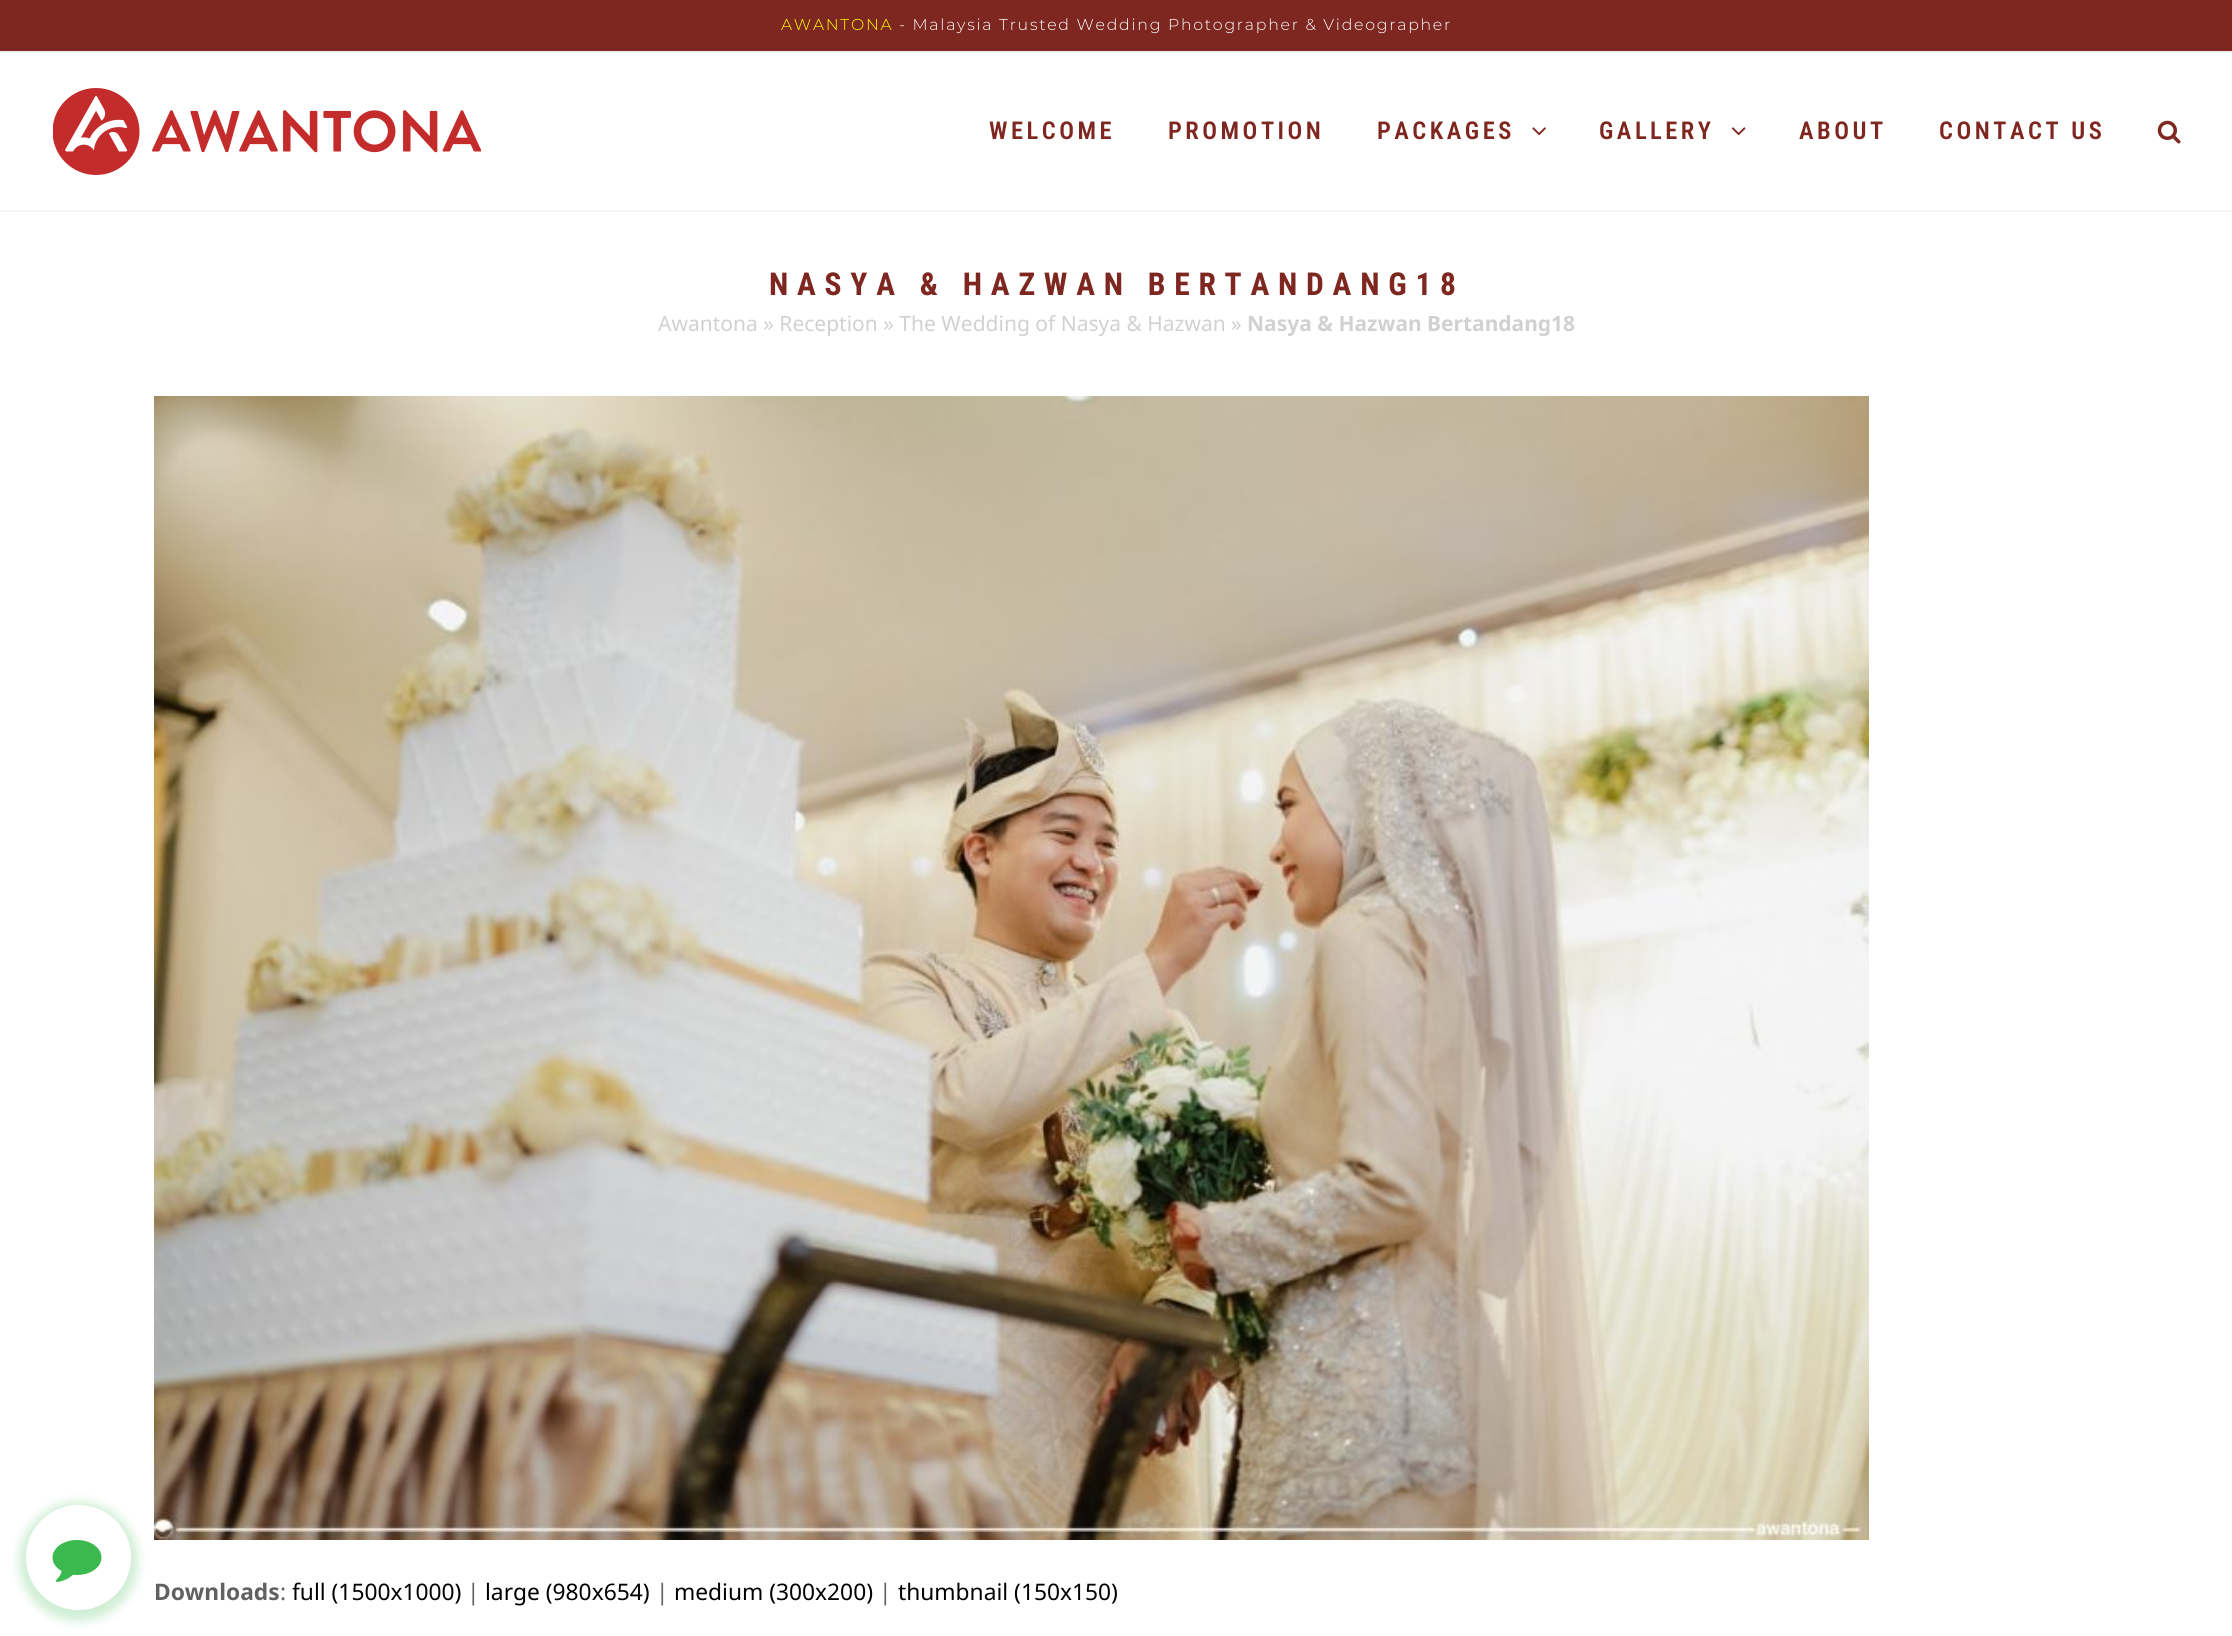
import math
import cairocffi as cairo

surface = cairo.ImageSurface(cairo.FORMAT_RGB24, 2232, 1636)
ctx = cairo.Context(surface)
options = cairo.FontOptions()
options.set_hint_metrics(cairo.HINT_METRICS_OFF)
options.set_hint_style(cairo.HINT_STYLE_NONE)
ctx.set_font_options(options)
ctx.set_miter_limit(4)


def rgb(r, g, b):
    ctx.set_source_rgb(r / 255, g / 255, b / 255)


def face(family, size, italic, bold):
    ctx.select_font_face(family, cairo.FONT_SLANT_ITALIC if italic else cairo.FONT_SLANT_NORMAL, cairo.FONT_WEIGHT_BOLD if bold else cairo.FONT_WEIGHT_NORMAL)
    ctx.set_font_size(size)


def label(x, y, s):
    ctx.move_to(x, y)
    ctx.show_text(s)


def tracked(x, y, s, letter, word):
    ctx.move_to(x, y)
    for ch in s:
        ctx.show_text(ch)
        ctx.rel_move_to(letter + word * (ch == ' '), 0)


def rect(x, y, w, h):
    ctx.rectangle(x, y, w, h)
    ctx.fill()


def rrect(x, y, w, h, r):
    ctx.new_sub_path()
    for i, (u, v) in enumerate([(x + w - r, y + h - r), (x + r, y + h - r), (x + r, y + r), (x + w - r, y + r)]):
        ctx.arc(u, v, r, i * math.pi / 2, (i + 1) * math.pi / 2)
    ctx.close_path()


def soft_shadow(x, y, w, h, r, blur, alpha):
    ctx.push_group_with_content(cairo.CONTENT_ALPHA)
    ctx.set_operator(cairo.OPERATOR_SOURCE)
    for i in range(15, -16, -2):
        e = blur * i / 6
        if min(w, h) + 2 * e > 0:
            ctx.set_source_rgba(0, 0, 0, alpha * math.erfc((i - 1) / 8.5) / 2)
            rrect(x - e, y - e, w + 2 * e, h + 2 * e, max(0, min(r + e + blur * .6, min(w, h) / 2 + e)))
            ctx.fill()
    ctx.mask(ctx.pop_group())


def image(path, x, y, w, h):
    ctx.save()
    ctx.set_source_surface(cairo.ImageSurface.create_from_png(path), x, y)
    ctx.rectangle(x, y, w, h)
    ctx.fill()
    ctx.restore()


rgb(255, 255, 255)
ctx.paint()
rgb(59, 184, 78)
soft_shadow(19, 1502, 119, 119, 59.5, 5, 0.24)
rgb(255, 255, 255)
ctx.arc(78.5, 1557.5, 48, 0, 2 * math.pi)
ctx.fill_preserve()
ctx.set_line_width(9)
ctx.stroke()
image('image0.png', 52, 1540, 50, 42)
rgb(126, 39, 32)
rect(0, 0, 2232, 51)
rgb(238, 238, 238)
rect(0, 51, 2232, 2)
face('Montserrat Light', 15.75, 0, 0)
rgb(255, 255, 0)
tracked(781, 30, 'AWANTONA', 1.75, 0)
rgb(255, 255, 255)
tracked(899, 30, '- Malaysia Trusted Wedding Photographer & Videographer', 1.75, 0)
image('image1.png', 53, 88, 428, 87)
face('Roboto Condensed SemiBold', 24.5, 0, 0)
rgb(126, 39, 32)
tracked(989, 139, 'WELCOME', 3.5, 0)
tracked(1168, 139, 'PROMOTION', 3.5, 0)
tracked(1377, 139, 'PACKAGES', 3.5, 0)
image('image2.png', 1532, 127, 14, 9)
tracked(1599, 139, 'GALLERY', 3.5, 0)
image('image3.png', 1731, 127, 15, 9)
tracked(1799, 139, 'ABOUT', 3.5, 0)
tracked(1939, 139, 'CONTACT US', 3.5, 0)
image('image4.png', 2157, 120, 24, 24)
rgb(244, 244, 244)
rect(0, 210, 2232, 2)
face('Roboto Condensed', 31.5, 0, 1)
rgb(126, 39, 32)
tracked(769, 295, 'NASYA & HAZWAN BERTANDANG18', 8.75, 0)
face('Noto Sans', 21, 0, 0)
rgb(209, 209, 209)
label(658, 331, 'Awantona » Reception » The Wedding of Nasya & Hazwan')
label(1231, 331, '»')
face('Noto Sans', 21, 0, 1)
label(1247, 331, 'Nasya & Hazwan Bertandang18')
image('image5.png', 154, 396, 1715, 1144)
face('Noto Sans', 22.75, 0, 1)
rgb(97, 97, 97)
label(154, 1600, 'Downloads')
face('Noto Sans', 22.75, 0, 0)
label(280, 1600, ':')
rgb(0, 0, 0)
label(292, 1600, 'full (1500x1000)')
rgb(97, 97, 97)
label(467, 1600, '|')
rgb(0, 0, 0)
label(485, 1600, 'large (980x654)')
rgb(97, 97, 97)
label(656, 1600, '|')
rgb(0, 0, 0)
label(674, 1600, 'medium (300x200)')
rgb(97, 97, 97)
label(879, 1600, '|')
rgb(0, 0, 0)
label(898, 1600, 'thumbnail (150x150)')
surface.write_to_png('render.png')
